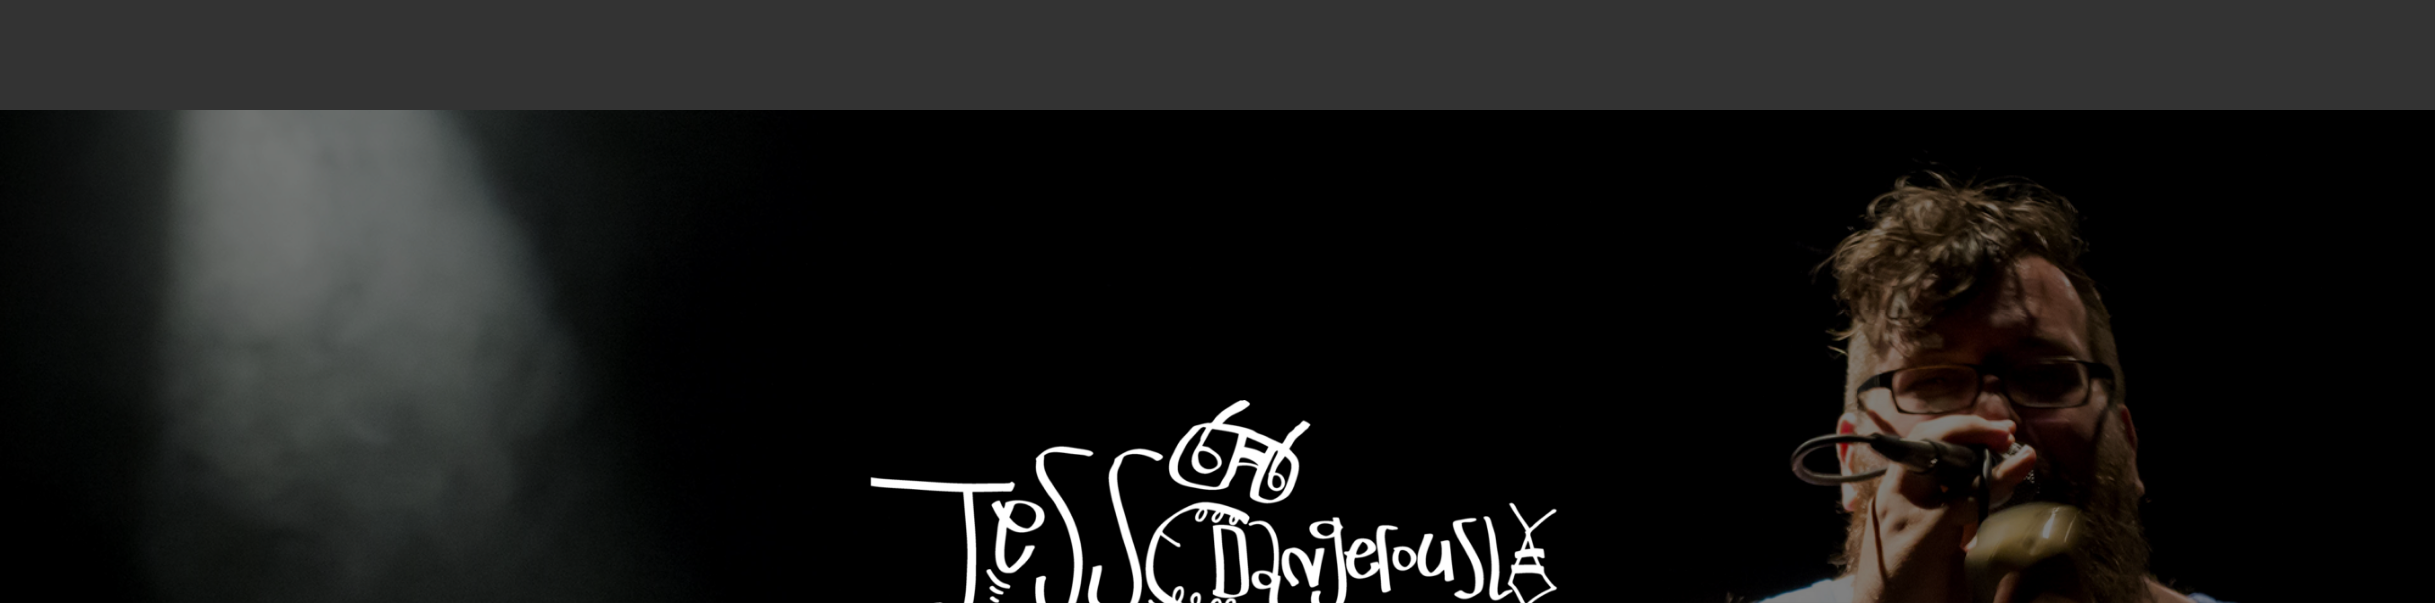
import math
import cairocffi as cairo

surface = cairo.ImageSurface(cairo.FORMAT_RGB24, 2435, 603)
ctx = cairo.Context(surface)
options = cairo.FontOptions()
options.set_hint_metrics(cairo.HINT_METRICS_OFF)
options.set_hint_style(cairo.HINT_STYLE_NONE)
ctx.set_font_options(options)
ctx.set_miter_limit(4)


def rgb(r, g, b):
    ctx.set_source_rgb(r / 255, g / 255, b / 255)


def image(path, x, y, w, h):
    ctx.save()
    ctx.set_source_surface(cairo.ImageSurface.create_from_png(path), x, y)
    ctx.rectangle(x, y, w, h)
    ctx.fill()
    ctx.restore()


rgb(51, 51, 51)
ctx.paint()
image('image0.png', 0, 110, 2435, 493)
image('image1.png', 870, 400, 688, 203)
surface.write_to_png('render.png')
